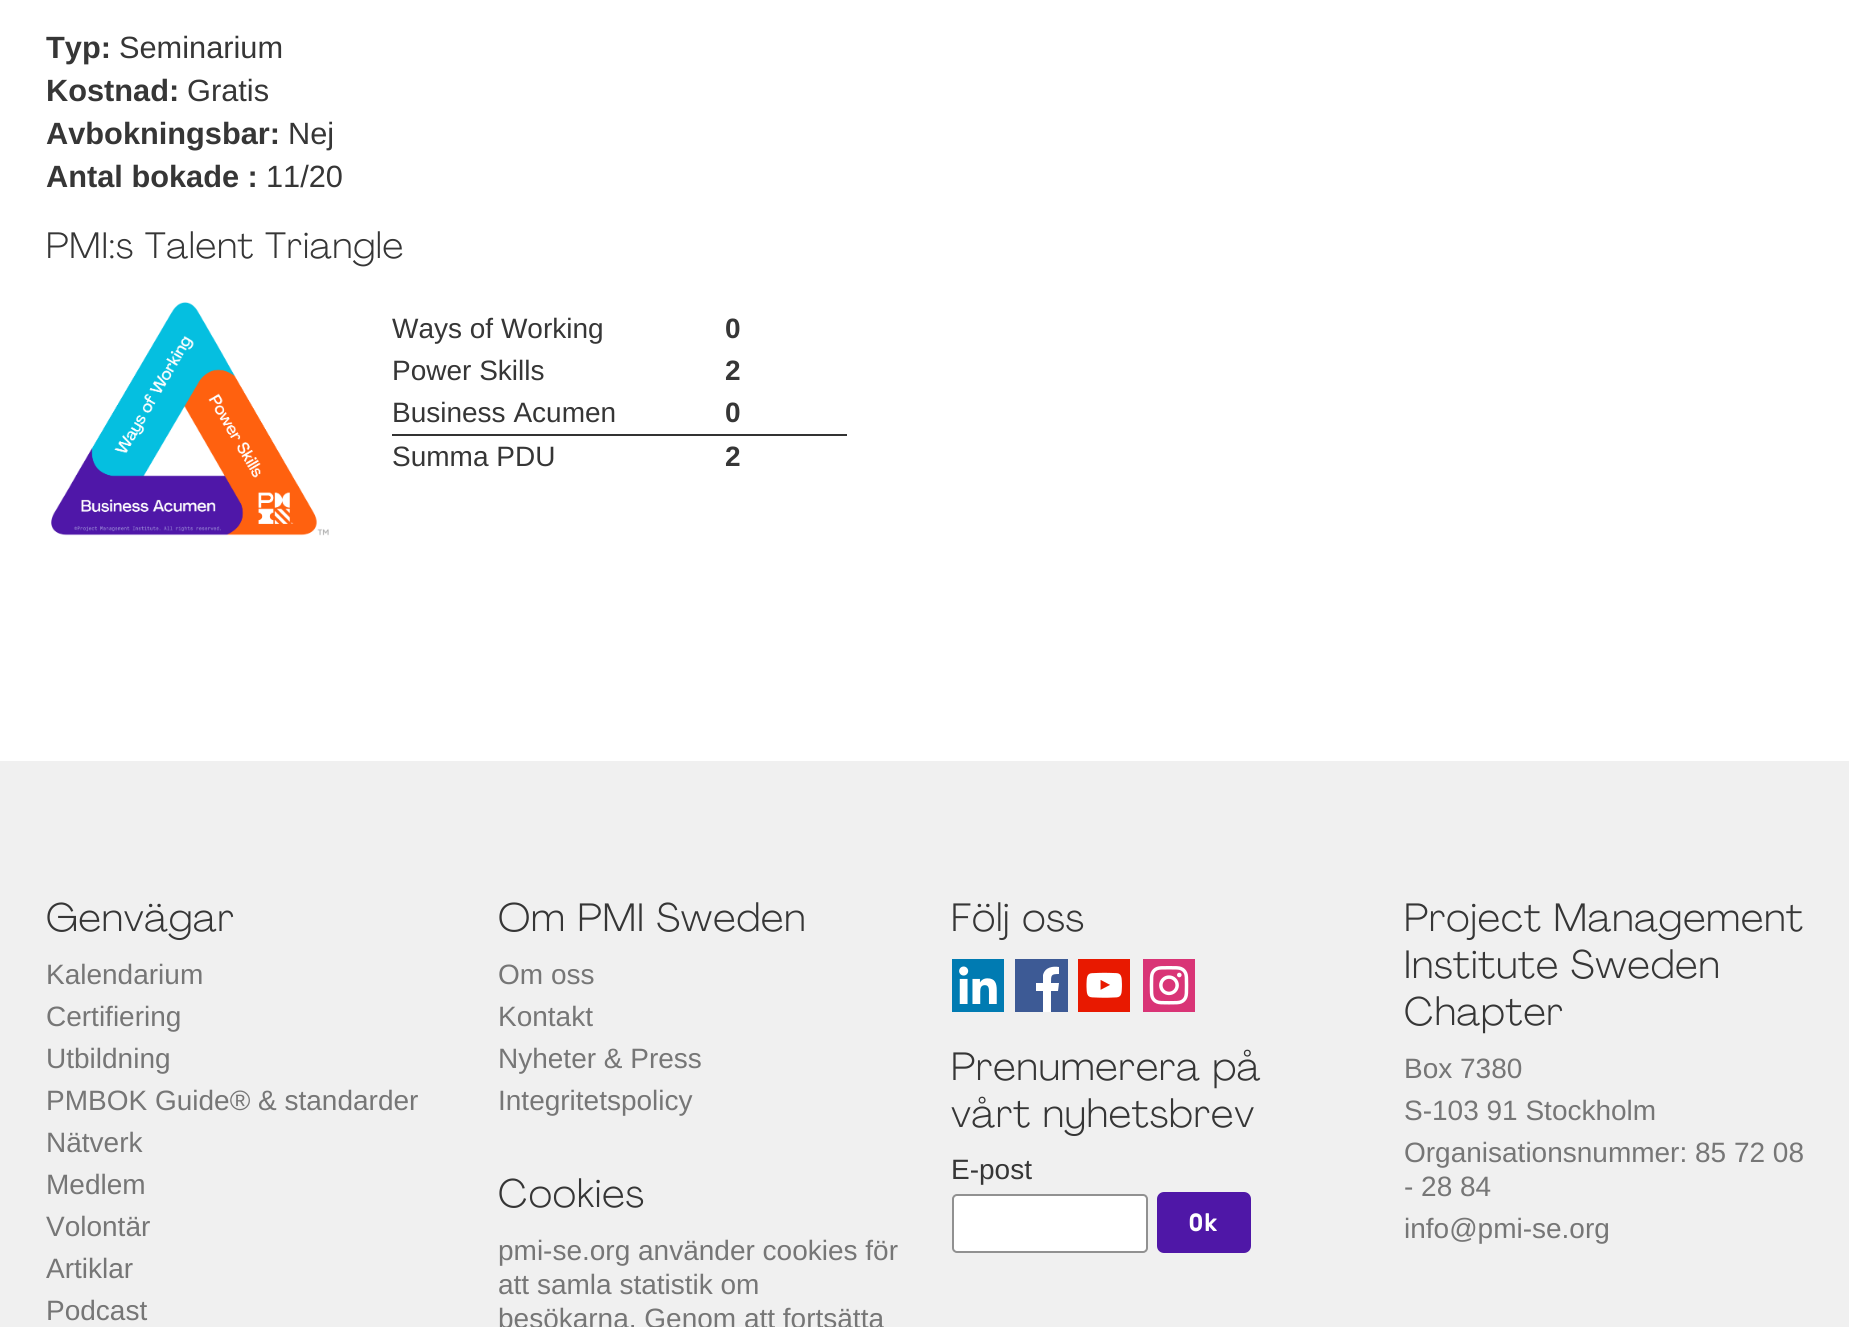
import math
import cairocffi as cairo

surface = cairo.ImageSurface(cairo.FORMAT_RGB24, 1849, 1327)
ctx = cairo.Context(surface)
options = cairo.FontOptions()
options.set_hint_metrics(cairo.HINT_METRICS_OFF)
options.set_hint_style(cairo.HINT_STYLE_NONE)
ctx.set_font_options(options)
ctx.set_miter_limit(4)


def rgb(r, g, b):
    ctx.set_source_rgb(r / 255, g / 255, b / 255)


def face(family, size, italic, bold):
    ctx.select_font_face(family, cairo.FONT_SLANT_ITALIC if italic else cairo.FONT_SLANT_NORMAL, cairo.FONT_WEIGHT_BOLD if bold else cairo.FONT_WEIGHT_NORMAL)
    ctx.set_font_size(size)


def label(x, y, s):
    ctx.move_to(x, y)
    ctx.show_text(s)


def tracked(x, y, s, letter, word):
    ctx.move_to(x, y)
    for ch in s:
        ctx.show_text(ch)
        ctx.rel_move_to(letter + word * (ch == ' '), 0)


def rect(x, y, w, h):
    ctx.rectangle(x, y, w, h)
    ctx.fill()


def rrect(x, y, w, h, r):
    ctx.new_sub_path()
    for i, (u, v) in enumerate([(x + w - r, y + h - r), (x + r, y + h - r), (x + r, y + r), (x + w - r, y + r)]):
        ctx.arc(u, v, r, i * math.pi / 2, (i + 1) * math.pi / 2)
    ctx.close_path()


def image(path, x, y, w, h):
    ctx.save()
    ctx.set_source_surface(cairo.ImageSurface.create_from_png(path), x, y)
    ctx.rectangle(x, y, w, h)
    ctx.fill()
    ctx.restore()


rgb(255, 255, 255)
ctx.paint()
face('Liberation Sans', 30.75, 0, 1)
rgb(54, 54, 54)
label(46, 58, 'Typ:')
face('Liberation Sans', 30.75, 0, 0)
label(119, 58, 'Seminarium')
face('Liberation Sans', 30.75, 0, 1)
label(46, 101, 'Kostnad:')
face('Liberation Sans', 30.75, 0, 0)
label(187, 101, 'Gratis')
face('Liberation Sans', 30.75, 0, 1)
label(46, 144, 'Avbokningsbar:')
face('Liberation Sans', 30.75, 0, 0)
label(288, 144, 'Nej')
face('Liberation Sans', 30.75, 0, 1)
label(46, 187, 'Antal bokade :')
face('Liberation Sans', 30.75, 0, 0)
label(266, 187, '11/20')
face('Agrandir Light', 36.5, 0, 0)
tracked(46, 258, 'PMI:s Talent Triangle', 0.9, 0)
image('image0.png', 51, 302, 278, 234)
face('Liberation Sans', 28, 0, 0)
label(392, 338, 'Ways of Working')
face('Liberation Sans', 28, 0, 1)
label(725, 338, '0')
face('Liberation Sans', 28, 0, 0)
label(392, 380, 'Power Skills')
face('Liberation Sans', 28, 0, 1)
label(725, 380, '2')
face('Liberation Sans', 28, 0, 0)
label(392, 422, 'Business Acumen')
face('Liberation Sans', 28, 0, 1)
label(725, 422, '0')
rgb(51, 51, 51)
rect(392, 434, 455, 2)
face('Liberation Sans', 28, 0, 0)
rgb(54, 54, 54)
label(392, 466, 'Summa PDU')
face('Liberation Sans', 28, 0, 1)
label(725, 466, '2')
rgb(240, 240, 240)
rect(0, 761, 1849, 566)
face('Agrandir Light', 39.25, 0, 0)
rgb(54, 54, 54)
tracked(46, 931, 'Genvägar', 0.9, 0)
face('Liberation Sans', 28, 0, 0)
rgb(118, 118, 118)
label(46, 984, 'Kalendarium')
label(46, 1026, 'Certifiering')
label(46, 1068, 'Utbildning')
label(46, 1110, 'PMBOK Guide® & standarder')
label(46, 1152, 'Nätverk')
label(46, 1194, 'Medlem')
label(46, 1236, 'Volontär')
label(46, 1278, 'Artiklar')
label(46, 1320, 'Podcast')
face('Agrandir Light', 39.25, 0, 0)
rgb(54, 54, 54)
tracked(498, 931, 'Om PMI Sweden', 0.9, 0)
face('Liberation Sans', 28, 0, 0)
rgb(118, 118, 118)
label(498, 984, 'Om oss')
label(498, 1026, 'Kontakt')
label(498, 1068, 'Nyheter & Press')
label(498, 1110, 'Integritetspolicy')
face('Agrandir Light', 39.25, 0, 0)
rgb(54, 54, 54)
tracked(498, 1207, 'Cookies', 0.9, 0)
face('Liberation Sans', 28, 0, 0)
rgb(118, 118, 118)
label(498, 1260, 'pmi-se.org använder cookies för')
label(498, 1294, 'att samla statistik om')
label(498, 1328, 'besökarna. Genom att fortsätta')
face('Agrandir Light', 39.25, 0, 0)
rgb(54, 54, 54)
tracked(951, 931, 'Följ oss', 0.9, 0)
image('image1.png', 952, 959, 52, 53)
rgb(61, 90, 149)
rect(1015, 959, 53, 53)
rgb(255, 255, 255)
ctx.new_path()
ctx.move_to(1051, 1012)
ctx.line_to(1051, 991)
ctx.line_to(1058, 991)
ctx.line_to(1059, 983)
ctx.line_to(1051, 983)
ctx.curve_to(1051, 975, 1051, 974, 1059, 974)
ctx.line_to(1059, 967)
ctx.curve_to(1053, 966, 1045, 967, 1043, 975)
ctx.line_to(1043, 983)
ctx.line_to(1036, 983)
ctx.line_to(1036, 991)
ctx.line_to(1043, 991)
ctx.line_to(1043, 1012)
ctx.close_path()
ctx.fill()
image('image2.png', 1078, 959, 52, 53)
image('image3.png', 1143, 959, 52, 53)
rgb(54, 54, 54)
tracked(951, 1080, 'Prenumerera på', 0.9, 0)
tracked(951, 1127, 'vårt nyhetsbrev', 0.9, 0)
face('Liberation Sans', 28, 0, 0)
label(951, 1179, 'E-post')
rgb(255, 255, 255)
rrect(953, 1195, 194, 57, 4)
ctx.fill_preserve()
rgb(145, 145, 145)
ctx.stroke()
rgb(79, 23, 167)
rrect(1157, 1192, 94, 61, 7)
ctx.fill()
face('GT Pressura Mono', 25, 0, 1)
rgb(255, 255, 255)
tracked(1189, 1231, 'Ok', 0.9, 0)
face('Agrandir Light', 39.25, 0, 0)
rgb(54, 54, 54)
tracked(1404, 931, 'Project Management', 0.9, 0)
tracked(1404, 978, 'Institute Sweden', 0.9, 0)
tracked(1404, 1025, 'Chapter', 0.9, 0)
face('Liberation Sans', 28, 0, 0)
rgb(118, 118, 118)
label(1404, 1078, 'Box 7380')
label(1404, 1120, 'S-103 91 Stockholm')
label(1404, 1162, 'Organisationsnummer: 85 72 08')
label(1404, 1196, '- 28 84')
label(1404, 1238, 'info@pmi-se.org')
surface.write_to_png('render.png')
